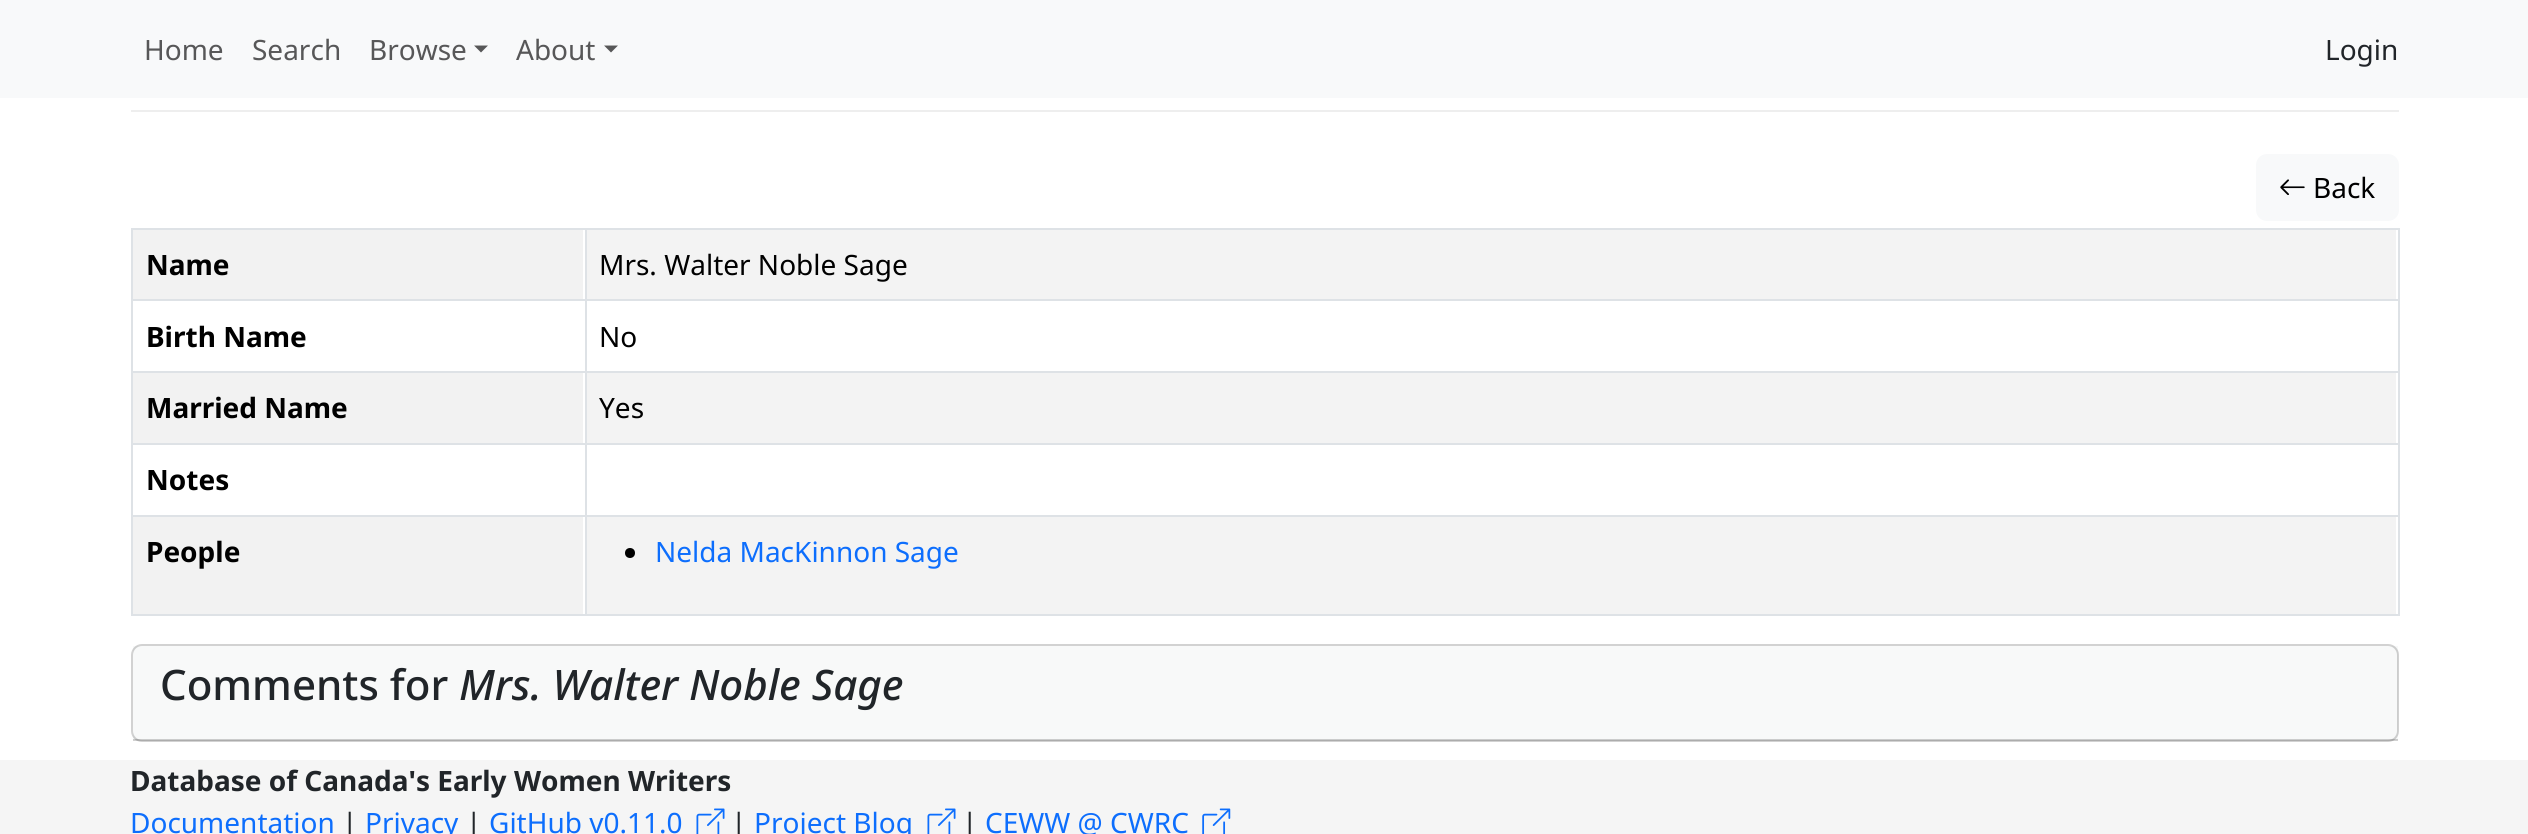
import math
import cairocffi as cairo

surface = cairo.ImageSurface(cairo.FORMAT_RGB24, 2528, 834)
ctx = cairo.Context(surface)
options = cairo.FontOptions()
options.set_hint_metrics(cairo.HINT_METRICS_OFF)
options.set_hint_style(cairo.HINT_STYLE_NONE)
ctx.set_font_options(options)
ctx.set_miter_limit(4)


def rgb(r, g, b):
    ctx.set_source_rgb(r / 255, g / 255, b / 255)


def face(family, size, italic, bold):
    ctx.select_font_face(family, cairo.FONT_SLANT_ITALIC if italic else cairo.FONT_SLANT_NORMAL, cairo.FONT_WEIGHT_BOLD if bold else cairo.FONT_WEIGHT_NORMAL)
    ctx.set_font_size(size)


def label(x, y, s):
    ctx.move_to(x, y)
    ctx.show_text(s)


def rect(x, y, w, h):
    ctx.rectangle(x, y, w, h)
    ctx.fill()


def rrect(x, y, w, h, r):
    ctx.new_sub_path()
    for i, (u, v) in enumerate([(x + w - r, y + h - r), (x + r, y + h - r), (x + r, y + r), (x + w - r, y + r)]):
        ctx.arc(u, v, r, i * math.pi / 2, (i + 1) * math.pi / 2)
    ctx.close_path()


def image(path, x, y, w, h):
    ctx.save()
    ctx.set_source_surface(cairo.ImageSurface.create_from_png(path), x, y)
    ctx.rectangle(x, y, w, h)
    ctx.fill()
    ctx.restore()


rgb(255, 255, 255)
ctx.paint()
rgb(248, 249, 250)
rect(0, 0, 2528, 98)
face('Noto Sans', 28, 0, 0)
rgb(87, 87, 88)
label(144, 60, 'Home')
label(252, 60, 'Search')
label(369, 60, 'Browse')
ctx.new_path()
ctx.move_to(474, 45.5)
ctx.line_to(488, 45.5)
ctx.line_to(481, 52.5)
ctx.close_path()
ctx.fill()
label(516, 60, 'About')
ctx.new_path()
ctx.move_to(604, 45.5)
ctx.line_to(618, 45.5)
ctx.line_to(611, 52.5)
ctx.close_path()
ctx.fill()
rgb(33, 37, 41)
label(2325, 60, 'Login')
rgb(238, 238, 238)
rect(131, 110, 2268, 2)
rgb(248, 249, 250)
rrect(2256, 154, 143, 67, 11)
ctx.fill()
image('image0.png', 2280, 179, 25, 16)
rgb(0, 0, 0)
label(2313, 198, 'Back')
rgb(222, 226, 230)
rect(131, 228, 2268, 2)
rgb(242, 242, 242)
rect(133, 230, 450, 69)
face('Noto Sans', 28, 0, 1)
rgb(0, 0, 0)
label(146, 275, 'Name')
rgb(243, 243, 243)
rect(587, 230, 1809, 69)
face('Noto Sans', 28, 0, 0)
rgb(0, 0, 0)
label(599, 275, 'Mrs. Walter Noble Sage')
rgb(222, 226, 230)
rect(131, 299, 2268, 2)
face('Noto Sans', 28, 0, 1)
rgb(0, 0, 0)
label(146, 347, 'Birth Name')
face('Noto Sans', 28, 0, 0)
label(599, 347, 'No')
rgb(222, 226, 230)
rect(131, 371, 2268, 2)
rgb(242, 242, 242)
rect(133, 373, 450, 70)
face('Noto Sans', 28, 0, 1)
rgb(0, 0, 0)
label(146, 418, 'Married Name')
rgb(243, 243, 243)
rect(587, 373, 1809, 70)
face('Noto Sans', 28, 0, 0)
rgb(0, 0, 0)
label(599, 418, 'Yes')
rgb(222, 226, 230)
rect(131, 443, 2268, 2)
face('Noto Sans', 28, 0, 1)
rgb(0, 0, 0)
label(146, 490, 'Notes')
rgb(222, 226, 230)
rect(131, 515, 2268, 2)
rect(131, 614, 2268, 2)
rgb(242, 242, 242)
rect(133, 517, 450, 97)
rgb(222, 226, 230)
rect(131, 228, 2, 388)
rgb(0, 0, 0)
label(146, 562, 'People')
rgb(243, 243, 243)
rect(587, 517, 1809, 97)
rgb(222, 226, 230)
rect(2398, 228, 2, 388)
rect(585, 228, 2, 388)
rgb(0, 0, 0)
ctx.new_path()
ctx.arc(630, 553, 5, 0, 2 * math.pi)
ctx.fill()
face('Noto Sans', 28, 0, 0)
rgb(13, 110, 253)
label(655, 562, 'Nelda MacKinnon Sage')
rrect(132, 645, 2266, 96, 10)
rgb(210, 210, 210)
ctx.stroke()
ctx.set_source_rgba(0.129, 0.145, 0.161, 0.03)
rect(133, 646, 2265, 94)
ctx.set_source_rgba(0, 0, 0, 0.18)
rect(133, 739, 2265, 2)
face('Noto Sans Medium', 42, 0, 0)
rgb(33, 37, 41)
label(160, 700, 'Comments for')
face('Noto Sans Medium', 42, 1, 0)
label(459, 700, 'Mrs. Walter Noble Sage')
rgb(245, 245, 245)
rect(0, 760, 2528, 74)
face('Noto Sans', 28, 0, 1)
rgb(33, 37, 41)
label(130, 791, 'Database of Canada\'s Early Women Writers')
face('Noto Sans', 28, 0, 0)
rgb(13, 110, 253)
label(130, 833, 'Documentation')
rgb(33, 37, 41)
label(342, 833, '|')
rgb(13, 110, 253)
label(365, 833, 'Privacy')
rgb(33, 37, 41)
label(466, 833, '|')
rgb(13, 110, 253)
label(489, 833, 'GitHub v0.11.0')
image('image1.png', 696, 808, 29, 26)
rgb(33, 37, 41)
label(731, 833, '|')
rgb(13, 110, 253)
label(754, 833, 'Project Blog')
image('image1.png', 927, 808, 29, 26)
rgb(33, 37, 41)
label(962, 833, '|')
rgb(13, 110, 253)
label(985, 833, 'CEWW @ CWRC')
image('image2.png', 1202, 808, 29, 26)
surface.write_to_png('render.png')
